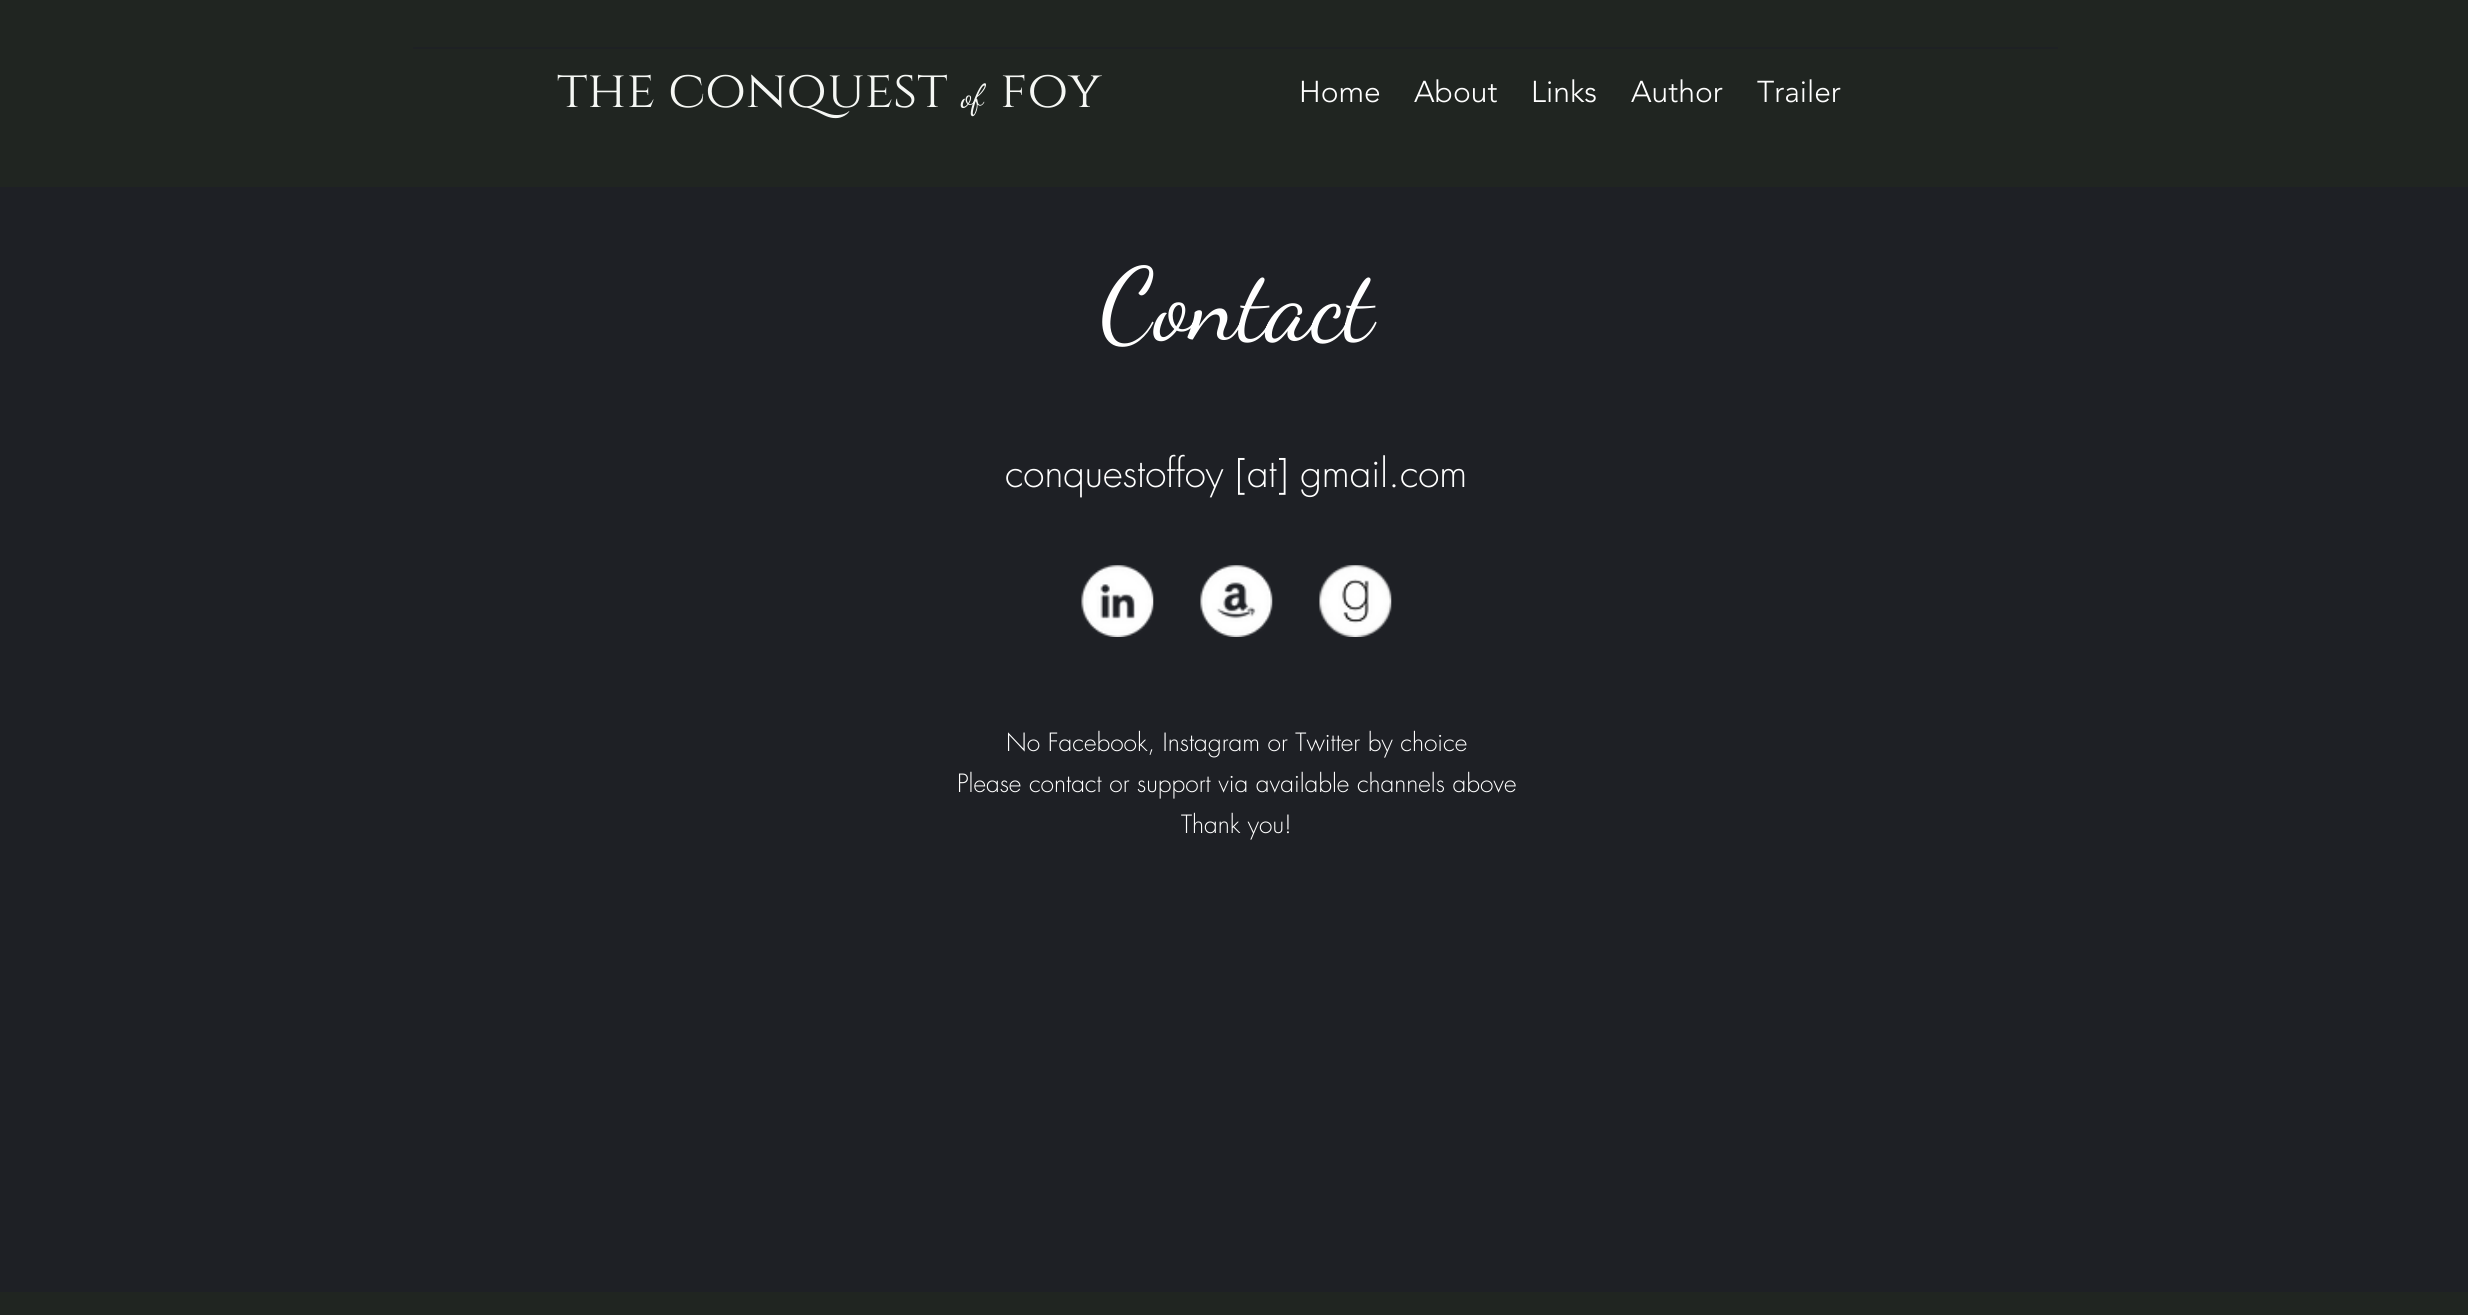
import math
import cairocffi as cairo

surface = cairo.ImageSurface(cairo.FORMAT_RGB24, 2468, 1315)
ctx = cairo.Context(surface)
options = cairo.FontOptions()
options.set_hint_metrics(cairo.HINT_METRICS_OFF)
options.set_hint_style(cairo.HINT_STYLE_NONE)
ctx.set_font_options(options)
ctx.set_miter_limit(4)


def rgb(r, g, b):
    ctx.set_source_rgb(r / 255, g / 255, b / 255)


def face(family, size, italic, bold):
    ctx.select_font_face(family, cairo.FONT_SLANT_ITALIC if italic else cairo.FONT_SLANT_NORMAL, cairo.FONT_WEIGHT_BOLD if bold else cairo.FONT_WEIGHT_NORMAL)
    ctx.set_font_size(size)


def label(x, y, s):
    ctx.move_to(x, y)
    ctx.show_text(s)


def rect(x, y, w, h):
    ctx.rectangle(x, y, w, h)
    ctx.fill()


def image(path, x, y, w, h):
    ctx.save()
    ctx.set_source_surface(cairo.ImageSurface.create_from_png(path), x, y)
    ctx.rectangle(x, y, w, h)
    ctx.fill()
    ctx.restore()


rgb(30, 32, 37)
ctx.paint()
rgb(32, 37, 33)
rect(0, 0, 2468, 187)
rgb(30, 33, 36)
rect(413, 47, 1645, 2)
face('Cinzel', 52.5, 0, 0)
rgb(245, 247, 244)
label(557, 107, 'the conquest')
face('Dancing Script', 33, 0, 0)
label(961, 107, 'of')
face('Cinzel', 52.5, 0, 0)
label(1000, 107, 'foy')
face('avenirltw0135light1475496 Light', 30, 0, 0)
rgb(255, 255, 255)
label(1299, 102, 'Home')
label(1414, 102, 'About')
label(1531, 102, 'Links')
label(1631, 102, 'Author')
label(1757, 102, 'Trailer')
face('Dancing Script', 101.5, 0, 0)
label(1100, 338, 'Contact')
face('futura Light', 38.5, 0, 0)
label(1005, 487, 'conquestoffoy [at] gmail.com')
image('image0.png', 1081, 565, 73, 72)
image('image1.png', 1200, 565, 73, 72)
image('image2.png', 1319, 565, 73, 72)
face('futura Light', 24.5, 0, 0)
label(1006, 751, 'No Facebook, Instagram or Twitter by choice')
label(957, 792, 'Please contact or support via available channels above')
label(1181, 833, 'Thank you!')
rgb(32, 37, 33)
rect(0, 1292, 2468, 23)
surface.write_to_png('render.png')
